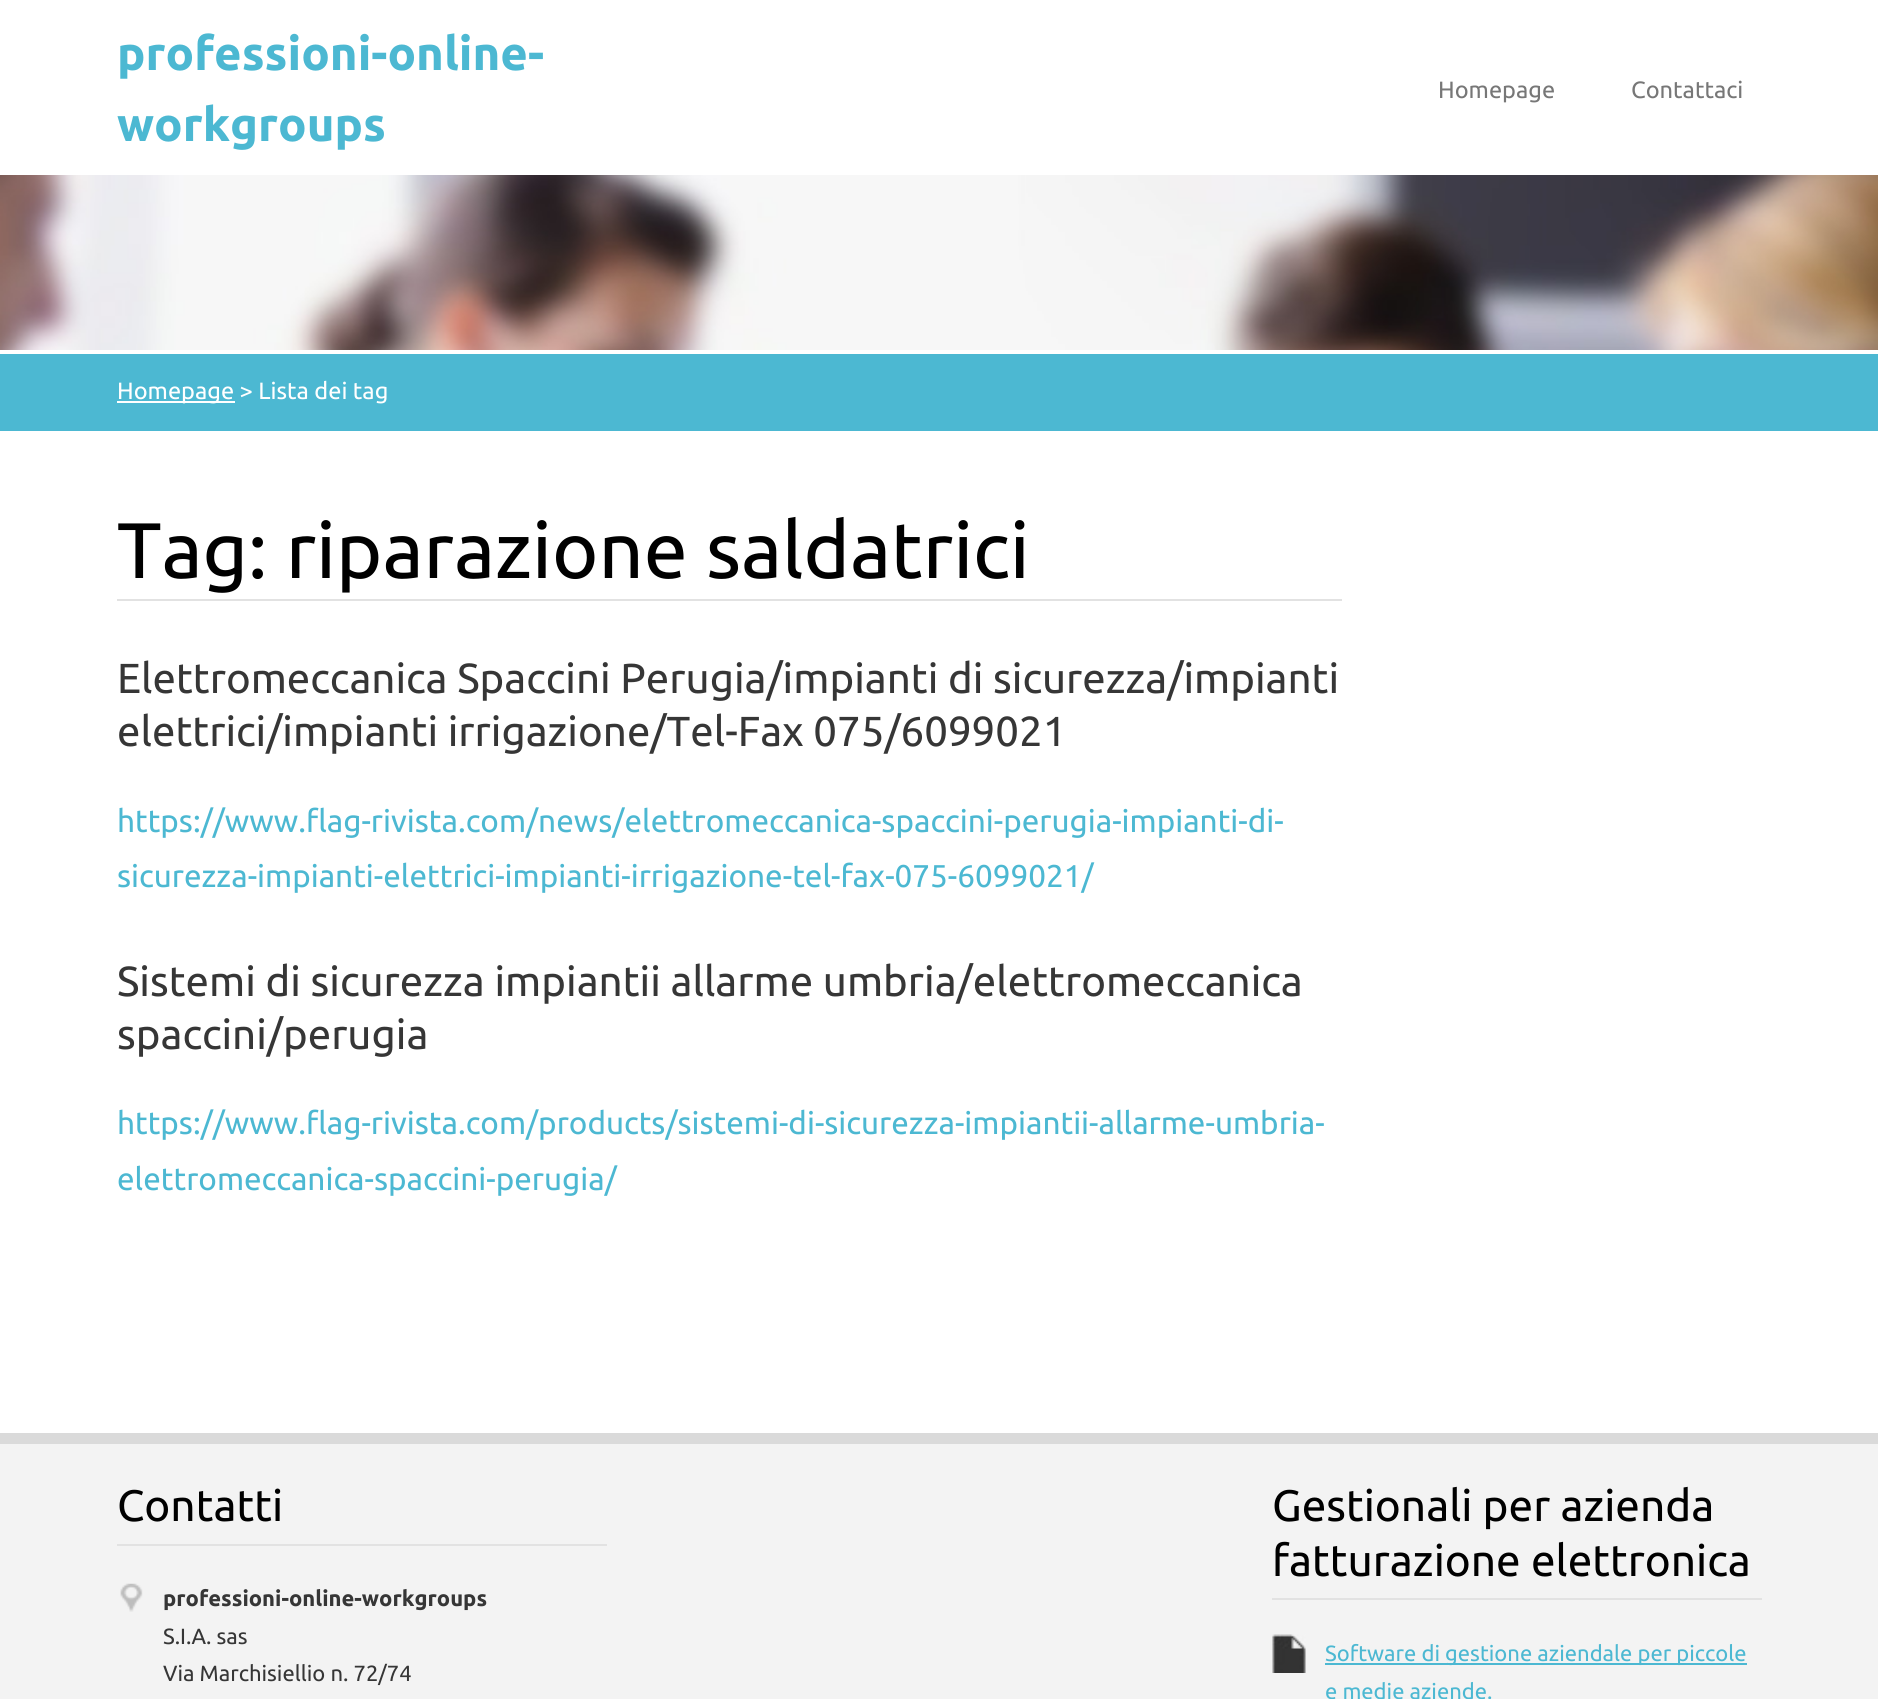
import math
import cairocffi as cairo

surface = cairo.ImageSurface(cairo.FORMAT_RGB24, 1878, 1699)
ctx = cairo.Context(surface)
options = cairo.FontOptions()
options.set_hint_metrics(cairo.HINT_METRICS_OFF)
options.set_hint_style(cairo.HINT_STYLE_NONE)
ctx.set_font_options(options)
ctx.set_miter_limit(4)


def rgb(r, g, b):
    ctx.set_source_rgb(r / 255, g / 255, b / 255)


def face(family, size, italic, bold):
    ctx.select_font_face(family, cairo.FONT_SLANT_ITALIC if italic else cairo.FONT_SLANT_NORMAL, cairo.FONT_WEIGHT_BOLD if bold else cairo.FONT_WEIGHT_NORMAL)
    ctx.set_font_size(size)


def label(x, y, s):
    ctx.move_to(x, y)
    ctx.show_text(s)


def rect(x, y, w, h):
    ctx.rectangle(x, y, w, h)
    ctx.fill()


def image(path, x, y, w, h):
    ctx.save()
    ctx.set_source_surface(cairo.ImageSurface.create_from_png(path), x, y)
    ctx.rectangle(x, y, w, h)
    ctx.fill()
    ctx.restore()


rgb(255, 255, 255)
ctx.paint()
face('Ubuntu', 47.25, 0, 1)
rgb(76, 184, 210)
label(117, 70, 'professioni-online-')
label(117, 141, 'workgroups')
face('Ubuntu', 23.6, 0, 0)
rgb(119, 119, 119)
label(1438, 98, 'Homepage')
label(1631, 98, 'Contattaci')
image('image0.png', 0, 175, 1878, 175)
rgb(76, 184, 210)
rect(0, 354, 1878, 77)
rgb(255, 255, 255)
rect(117, 401, 118, 2)
label(117, 399, 'Homepage > Lista dei tag')
rgb(226, 226, 226)
rect(117, 599, 1225, 2)
face('Ubuntu', 78.75, 0, 0)
rgb(0, 0, 0)
label(117, 578, 'Tag: riparazione saldatrici')
face('Ubuntu', 42, 0, 0)
rgb(54, 54, 54)
label(117, 693, 'Elettromeccanica Spaccini Perugia/impianti di sicurezza/impianti')
label(117, 746, 'elettrici/impianti irrigazione/Tel-Fax 075/6099021')
face('Ubuntu', 31.5, 0, 0)
rgb(76, 184, 210)
label(117, 832, 'https://www.flag-rivista.com/news/elettromeccanica-spaccini-perugia-impianti-di-')
label(117, 887, 'sicurezza-impianti-elettrici-impianti-irrigazione-tel-fax-075-6099021/')
face('Ubuntu', 42, 0, 0)
rgb(54, 54, 54)
label(117, 996, 'Sistemi di sicurezza impiantii allarme umbria/elettromeccanica')
label(117, 1049, 'spaccini/perugia')
face('Ubuntu', 31.5, 0, 0)
rgb(76, 184, 210)
label(117, 1134, 'https://www.flag-rivista.com/products/sistemi-di-sicurezza-impiantii-allarme-umbria-')
label(117, 1190, 'elettromeccanica-spaccini-perugia/')
rgb(243, 243, 243)
rect(0, 1444, 1878, 255)
rgb(218, 218, 218)
rect(0, 1433, 1878, 11)
rgb(226, 226, 226)
rect(117, 1544, 490, 2)
face('Ubuntu', 44.1, 0, 0)
rgb(0, 0, 0)
label(117, 1521, 'Contatti')
image('image1.png', 120, 1583, 23, 29)
face('Ubuntu', 22, 0, 1)
rgb(54, 54, 54)
label(163, 1606, 'professioni-online-workgroups')
face('Ubuntu', 22, 0, 0)
label(163, 1644, 'S.I.A. sas')
label(163, 1681, 'Via Marchisiellio n. 72/74')
rgb(226, 226, 226)
rect(1272, 1598, 490, 2)
face('Ubuntu', 44.1, 0, 0)
rgb(0, 0, 0)
label(1272, 1521, 'Gestionali per azienda')
label(1272, 1576, 'fatturazione elettronica')
image('image2.png', 1272, 1634, 34, 39)
rgb(76, 184, 210)
rect(1325, 1663, 422, 2)
face('Ubuntu', 22, 0, 0)
label(1325, 1661, 'Software di gestione aziendale per piccole')
label(1325, 1699, 'e medie aziende.')
surface.write_to_png('render.png')
